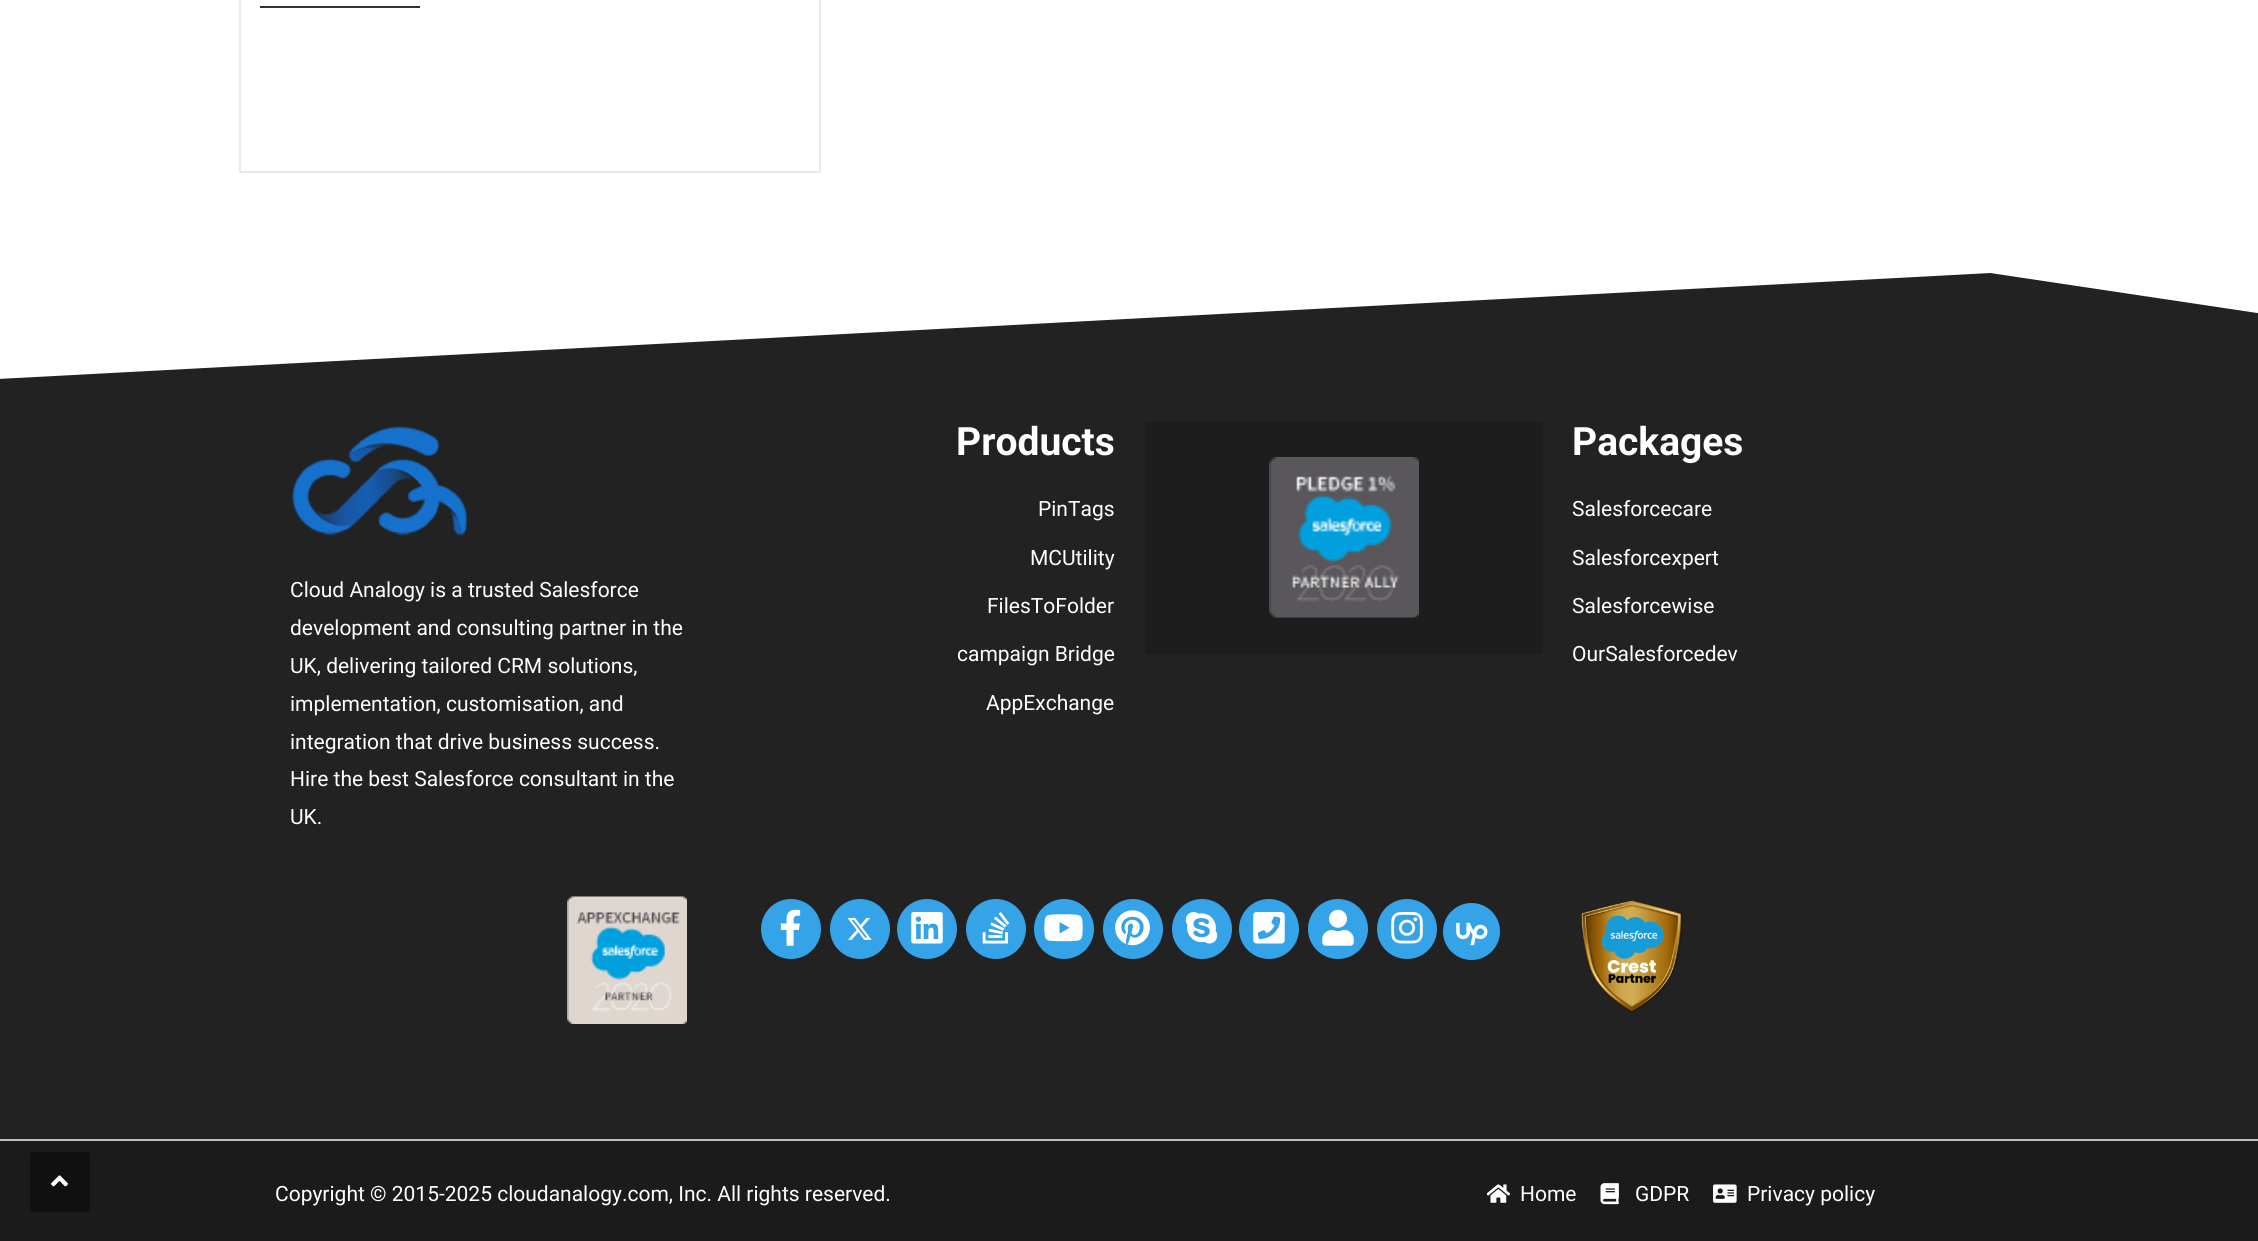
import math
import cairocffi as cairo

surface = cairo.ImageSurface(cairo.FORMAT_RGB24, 2258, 1241)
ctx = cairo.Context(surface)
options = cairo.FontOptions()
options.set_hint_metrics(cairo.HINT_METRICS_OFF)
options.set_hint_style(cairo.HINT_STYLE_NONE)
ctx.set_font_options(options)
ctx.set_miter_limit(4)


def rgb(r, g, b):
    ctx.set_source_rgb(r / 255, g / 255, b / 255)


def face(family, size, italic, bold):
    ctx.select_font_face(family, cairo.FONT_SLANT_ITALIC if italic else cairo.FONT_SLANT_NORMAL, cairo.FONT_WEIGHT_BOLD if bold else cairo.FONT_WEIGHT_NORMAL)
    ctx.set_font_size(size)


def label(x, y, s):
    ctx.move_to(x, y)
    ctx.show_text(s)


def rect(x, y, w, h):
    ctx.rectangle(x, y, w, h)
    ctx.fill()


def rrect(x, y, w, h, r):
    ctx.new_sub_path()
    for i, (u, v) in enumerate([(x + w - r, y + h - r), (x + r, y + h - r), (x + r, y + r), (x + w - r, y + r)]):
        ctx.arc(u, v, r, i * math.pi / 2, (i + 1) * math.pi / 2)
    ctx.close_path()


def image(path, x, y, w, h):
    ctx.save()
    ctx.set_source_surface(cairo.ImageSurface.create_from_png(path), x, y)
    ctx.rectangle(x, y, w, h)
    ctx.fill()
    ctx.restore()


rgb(255, 255, 255)
ctx.paint()
rgb(27, 27, 27)
rect(0, 1141, 2258, 100)
rgb(16, 16, 16)
rrect(30, 1152, 60, 60, 3)
ctx.fill()
image('image0.png', 51, 1175, 17, 12)
ctx.rectangle(240, -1, 580, 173)
rgb(233, 233, 233)
ctx.stroke()
rgb(51, 51, 51)
rect(260, 6, 160, 2)
rgb(34, 34, 34)
rect(0, 273, 2258, 866)
rgb(255, 255, 255)
ctx.new_path()
ctx.move_to(1990, 273)
ctx.line_to(-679, 415)
ctx.line_to(-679, 265)
ctx.line_to(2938, 265)
ctx.line_to(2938, 415)
ctx.close_path()
ctx.fill()
face('Roboto', 39, 0, 1)
label(956, 455, 'Products')
face('Roboto', 21, 0, 0)
label(1038, 516, 'PinTags')
label(1030, 565, 'MCUtility')
label(987, 613, 'FilesToFolder')
label(957, 661, 'campaign Bridge')
label(986, 710, 'AppExchange')
rgb(29, 29, 29)
rect(1145, 422, 397, 232)
image('image1.png', 1269, 457, 150, 161)
face('Roboto', 39, 0, 1)
rgb(255, 255, 255)
label(1572, 455, 'Packages')
face('Roboto', 21, 0, 0)
label(1572, 516, 'Salesforcecare')
label(1572, 565, 'Salesforcexpert')
label(1572, 613, 'Salesforcewise')
label(1572, 661, 'OurSalesforcedev')
image('image2.png', 292, 426, 175, 110)
label(290, 597, 'Cloud Analogy is a trusted Salesforce')
label(290, 635, 'development and consulting partner in the')
label(290, 673, 'UK, delivering tailored CRM solutions,')
label(290, 711, 'implementation, customisation, and')
label(290, 749, 'integration that drive business success.')
label(290, 786, 'Hire the best Salesforce consultant in the')
label(290, 824, 'UK.')
image('image3.png', 567, 896, 120, 128)
rgb(53, 163, 232)
ctx.arc(791, 929, 30, 0, 2 * math.pi)
ctx.fill()
image('image4.png', 780, 909, 21, 37)
ctx.arc(860, 929, 30, 0, 2 * math.pi)
ctx.fill()
image('image5.png', 847, 917, 25, 23)
ctx.arc(927, 929, 30, 0, 2 * math.pi)
ctx.fill()
image('image6.png', 911, 912, 32, 32)
ctx.arc(996, 929, 30, 0, 2 * math.pi)
ctx.fill()
image('image7.png', 982, 912, 28, 32)
ctx.arc(1064, 929, 30, 0, 2 * math.pi)
ctx.fill()
image('image8.png', 1044, 914, 39, 28)
ctx.arc(1133, 929, 30, 0, 2 * math.pi)
ctx.fill()
image('image9.png', 1115, 910, 35, 36)
ctx.arc(1202, 929, 30, 0, 2 * math.pi)
ctx.fill()
image('image10.png', 1185, 912, 33, 32)
ctx.arc(1269, 929, 30, 0, 2 * math.pi)
ctx.fill()
image('image11.png', 1253, 912, 32, 32)
ctx.arc(1338, 929, 30, 0, 2 * math.pi)
ctx.fill()
image('image12.png', 1322, 909, 32, 37)
ctx.arc(1407, 929, 30, 0, 2 * math.pi)
ctx.fill()
image('image13.png', 1391, 911, 32, 33)
ctx.arc(1471.5, 931.5, 28.5, 0, 2 * math.pi)
ctx.fill()
image('image14.png', 1456, 922, 32, 24)
image('image15.png', 1581, 900, 102, 112)
rgb(191, 191, 191)
rect(0, 1139, 2258, 2)
rgb(255, 255, 255)
label(275, 1201, 'Copyright © 2015-2025 cloudanalogy.com, Inc. All rights reserved.')
image('image16.png', 1487, 1184, 24, 19)
label(1520, 1201, 'Home')
image('image17.png', 1600, 1183, 19, 22)
label(1635, 1201, 'GDPR')
image('image18.png', 1713, 1184, 24, 19)
label(1747, 1201, 'Privacy policy')
surface.write_to_png('render.png')
